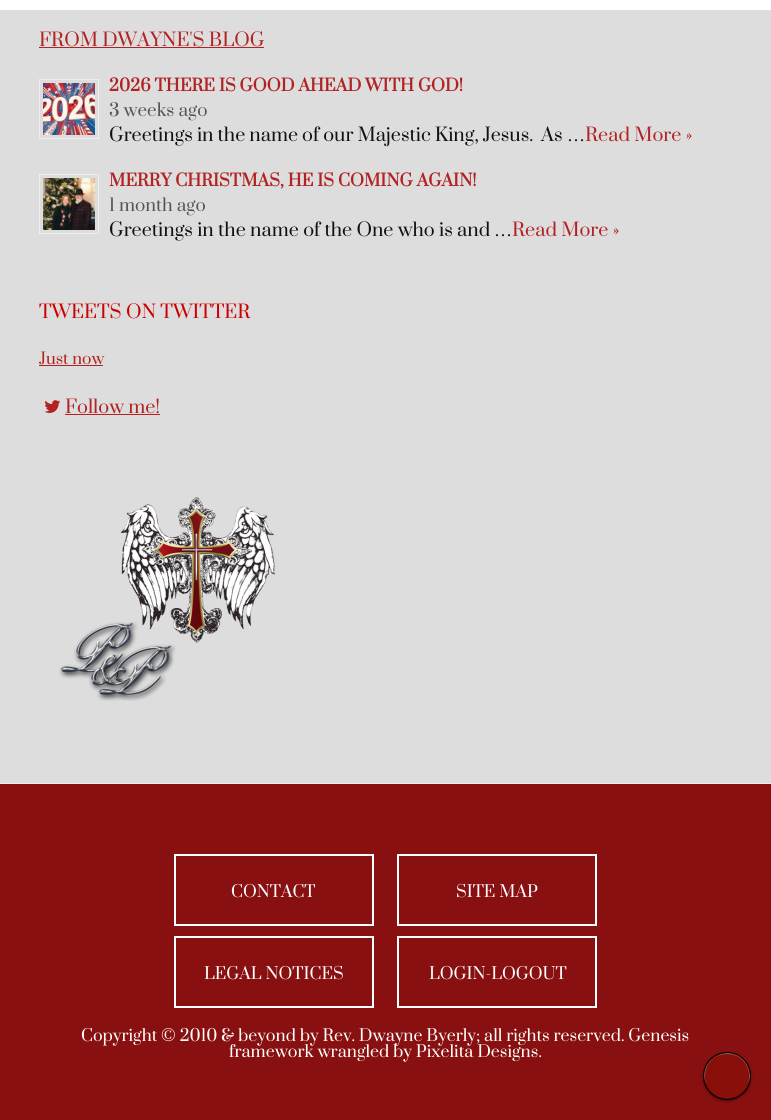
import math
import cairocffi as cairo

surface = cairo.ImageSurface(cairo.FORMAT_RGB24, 771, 1120)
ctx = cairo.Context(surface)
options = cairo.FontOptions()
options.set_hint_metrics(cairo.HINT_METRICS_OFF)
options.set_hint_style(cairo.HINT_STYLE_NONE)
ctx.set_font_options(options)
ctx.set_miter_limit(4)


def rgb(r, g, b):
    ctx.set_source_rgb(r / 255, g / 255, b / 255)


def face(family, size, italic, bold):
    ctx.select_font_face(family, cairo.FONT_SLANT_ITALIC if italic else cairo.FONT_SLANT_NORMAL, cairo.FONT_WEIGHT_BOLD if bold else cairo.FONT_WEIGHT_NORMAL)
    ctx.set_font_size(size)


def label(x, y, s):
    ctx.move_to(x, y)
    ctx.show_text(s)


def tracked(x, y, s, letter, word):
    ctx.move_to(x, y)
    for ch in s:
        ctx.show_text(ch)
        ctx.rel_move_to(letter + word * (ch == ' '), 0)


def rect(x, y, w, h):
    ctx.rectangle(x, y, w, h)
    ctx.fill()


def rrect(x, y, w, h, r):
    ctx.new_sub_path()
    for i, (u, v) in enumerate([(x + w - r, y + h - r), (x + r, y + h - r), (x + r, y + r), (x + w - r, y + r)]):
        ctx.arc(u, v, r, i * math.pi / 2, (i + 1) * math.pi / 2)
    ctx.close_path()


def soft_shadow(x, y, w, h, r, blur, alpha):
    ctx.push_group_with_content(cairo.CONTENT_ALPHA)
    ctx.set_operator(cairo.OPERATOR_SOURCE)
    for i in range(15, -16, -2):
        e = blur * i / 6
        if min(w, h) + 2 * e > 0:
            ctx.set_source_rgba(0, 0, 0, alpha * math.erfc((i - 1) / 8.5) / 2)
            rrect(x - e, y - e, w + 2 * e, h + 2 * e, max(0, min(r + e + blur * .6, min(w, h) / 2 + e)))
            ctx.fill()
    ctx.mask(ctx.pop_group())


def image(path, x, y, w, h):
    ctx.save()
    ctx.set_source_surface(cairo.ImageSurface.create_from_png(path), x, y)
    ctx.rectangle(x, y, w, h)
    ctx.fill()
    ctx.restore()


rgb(255, 255, 255)
ctx.paint()
rgb(221, 221, 221)
rect(0, 10, 771, 773)
face('Prata', 18, 0, 0)
rgb(178, 34, 34)
label(39, 46, 'FROM DWAYNE\'S BLOG')
rect(39, 47, 225, 1)
ctx.rectangle(39.5, 79.5, 59, 59)
rgb(238, 238, 238)
ctx.set_line_width(1)
ctx.stroke()
image('image0.png', 43, 83, 52, 52)
face('Prata', 16.2, 0, 1)
rgb(178, 34, 34)
label(109, 91, '2026 THERE IS GOOD AHEAD WITH GOD!')
face('Prata', 17, 0, 0)
rgb(85, 85, 85)
label(109, 116, '3 weeks ago')
face('Prata', 18, 0, 0)
rgb(17, 17, 17)
tracked(109, 141, 'Greetings in the name of our Majestic King, Jesus.', 0, -0.25)
label(541, 141, 'As')
face('Liberation Serif', 18, 0, 0)
label(567, 141, '…')
face('Prata', 18, 0, 0)
rgb(178, 34, 34)
label(585, 141, 'Read More »')
ctx.rectangle(39.5, 174.5, 59, 59)
rgb(238, 238, 238)
ctx.stroke()
image('image1.png', 43, 178, 52, 52)
face('Prata', 16.2, 0, 1)
rgb(178, 34, 34)
label(109, 186, 'MERRY CHRISTMAS, HE IS COMING AGAIN!')
face('Prata', 17, 0, 0)
rgb(85, 85, 85)
label(109, 211, '1 month ago')
face('Prata', 18, 0, 0)
rgb(17, 17, 17)
label(109, 236, 'Greetings in the name of the One who is and')
face('Liberation Serif', 18, 0, 0)
label(494, 236, '…')
face('Prata', 18, 0, 0)
rgb(178, 34, 34)
label(512, 236, 'Read More »')
rgb(204, 0, 0)
label(39, 318, 'TWEETS ON TWITTER')
face('Prata', 15.5, 0, 0)
rgb(178, 34, 34)
label(39, 364, 'Just now')
rect(39, 365, 64, 1)
image('image2.png', 44, 400, 17, 13)
face('Prata', 18, 0, 0)
label(65, 413, 'Follow me!')
rect(65, 414, 95, 1)
image('image3.png', 59, 497, 216, 204)
rgb(137, 16, 16)
rect(0, 784, 771, 336)
rgb(238, 238, 238)
rect(0, 783, 771, 1)
ctx.rectangle(175, 855, 198, 70)
rgb(255, 255, 255)
ctx.set_line_width(2)
ctx.stroke()
face('Prata', 16, 0, 0)
label(231, 897, 'CONTACT')
ctx.rectangle(398, 855, 198, 70)
ctx.stroke()
label(456, 897, 'SITE MAP')
ctx.rectangle(175, 937, 198, 70)
ctx.stroke()
label(204, 979, 'LEGAL NOTICES')
ctx.rectangle(398, 937, 198, 70)
ctx.stroke()
label(429, 979, 'LOGIN-LOGOUT')
label(81, 1041, 'Copyright © 2010 & beyond by Rev. Dwayne Byerly; all rights reserved. Genesis')
label(229, 1057, 'framework wrangled by Pixelita Designs.')
rgb(0, 0, 0)
soft_shadow(703, 1053, 48, 48, 24, 1.5, 0.4)
rgb(137, 15, 10)
ctx.arc(727, 1076, 23, 0, 2 * math.pi)
ctx.fill()
ctx.set_source_rgba(1, 1, 1, 0.4)
ctx.new_path()
ctx.move_to(727, 1054)
ctx.curve_to(745, 1054, 752, 1071, 748, 1084)
ctx.curve_to(751, 1079, 750, 1073, 748, 1067)
ctx.curve_to(737, 1039, 695, 1057, 706, 1084)
ctx.curve_to(702, 1071, 709, 1054, 727, 1054)
ctx.close_path()
ctx.fill()
ctx.arc(727, 1076, 22.5, 0, 2 * math.pi)
ctx.set_source_rgba(0, 0, 0, 0.2)
ctx.set_line_width(1)
ctx.stroke()
ctx.arc(727, 1076, 23.5, 0, 2 * math.pi)
rgb(0, 0, 0)
ctx.stroke()
surface.write_to_png('render.png')
